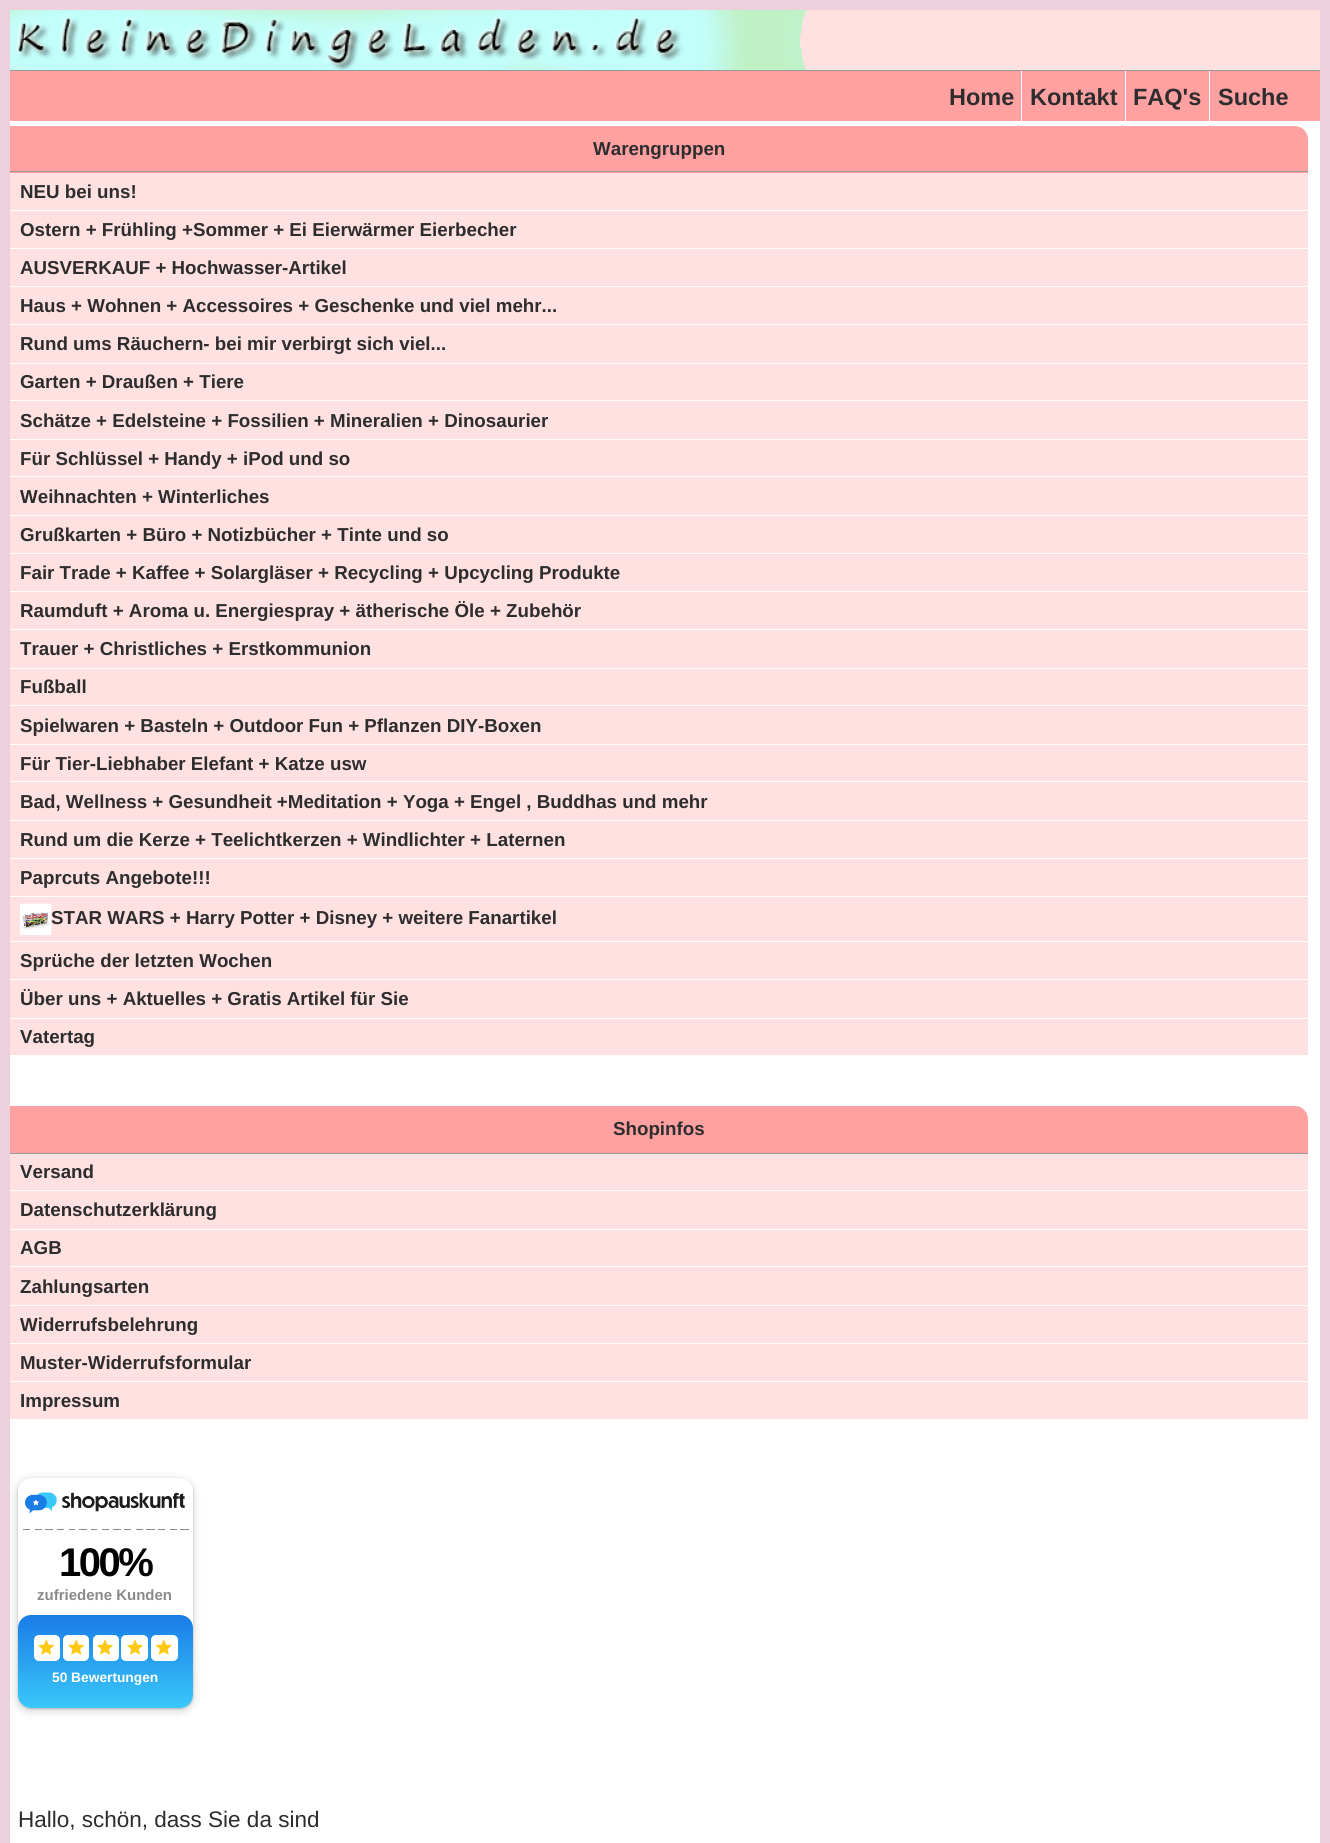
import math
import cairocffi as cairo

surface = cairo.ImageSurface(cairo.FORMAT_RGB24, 1330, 1843)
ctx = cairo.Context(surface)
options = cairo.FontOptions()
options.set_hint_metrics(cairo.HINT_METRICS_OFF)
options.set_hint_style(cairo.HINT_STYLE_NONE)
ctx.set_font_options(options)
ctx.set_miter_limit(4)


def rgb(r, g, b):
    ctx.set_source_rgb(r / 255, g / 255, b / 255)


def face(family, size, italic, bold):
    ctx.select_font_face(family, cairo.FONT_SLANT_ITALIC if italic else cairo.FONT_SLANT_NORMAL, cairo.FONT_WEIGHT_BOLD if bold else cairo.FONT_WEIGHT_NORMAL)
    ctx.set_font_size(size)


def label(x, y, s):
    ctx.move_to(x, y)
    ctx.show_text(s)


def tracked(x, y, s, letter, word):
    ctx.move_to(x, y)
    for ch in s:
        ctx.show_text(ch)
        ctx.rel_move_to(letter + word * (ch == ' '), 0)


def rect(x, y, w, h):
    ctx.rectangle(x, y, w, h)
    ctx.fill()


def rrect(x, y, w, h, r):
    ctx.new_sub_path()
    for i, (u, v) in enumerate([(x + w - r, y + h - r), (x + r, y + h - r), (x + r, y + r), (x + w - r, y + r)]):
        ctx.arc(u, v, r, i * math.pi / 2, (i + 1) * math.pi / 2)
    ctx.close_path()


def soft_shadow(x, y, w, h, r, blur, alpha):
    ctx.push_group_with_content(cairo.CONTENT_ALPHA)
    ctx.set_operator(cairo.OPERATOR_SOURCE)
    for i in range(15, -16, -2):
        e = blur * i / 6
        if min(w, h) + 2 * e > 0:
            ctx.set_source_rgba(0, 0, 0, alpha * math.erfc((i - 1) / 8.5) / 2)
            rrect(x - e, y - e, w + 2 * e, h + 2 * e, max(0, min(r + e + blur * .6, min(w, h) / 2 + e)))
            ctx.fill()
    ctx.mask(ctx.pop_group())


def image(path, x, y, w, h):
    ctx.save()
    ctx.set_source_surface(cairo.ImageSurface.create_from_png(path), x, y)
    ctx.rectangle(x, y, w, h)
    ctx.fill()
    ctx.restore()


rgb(238, 208, 220)
ctx.paint()
rgb(255, 255, 255)
rect(10, 121, 1310, 1722)
rgb(255, 225, 225)
rect(799, 10, 521, 60)
rgb(153, 153, 153)
rect(10, 70, 1310, 1)
image('image0.png', 10, 10, 797, 60)
rgb(255, 161, 161)
rect(10, 71, 1310, 50)
face('Liberation Sans', 23.5, 0, 1)
rgb(46, 45, 46)
label(949, 105, 'Home')
rgb(255, 255, 255)
rect(1021, 71, 1, 50)
rgb(46, 45, 46)
label(1030, 105, 'Kontakt')
rgb(255, 255, 255)
rect(1125, 71, 1, 50)
rgb(46, 45, 46)
label(1133, 105, 'FAQ\'s')
rgb(255, 255, 255)
rect(1209, 71, 1, 50)
rgb(46, 45, 46)
label(1218, 105, 'Suche')
rgb(255, 161, 161)
ctx.new_path()
ctx.move_to(10, 126)
ctx.line_to(1295, 126)
ctx.curve_to(1302, 126, 1308, 132, 1308, 139)
ctx.line_to(1308, 173)
ctx.line_to(10, 173)
ctx.close_path()
ctx.fill()
rgb(153, 153, 153)
rect(10, 171, 1298, 1)
face('Liberation Sans', 18.75, 0, 1)
rgb(46, 45, 46)
label(593, 155, 'Warengruppen')
rgb(255, 225, 225)
rect(10, 173, 1298, 37)
rgb(46, 45, 46)
label(20, 198, 'NEU bei uns!')
rgb(255, 225, 225)
rect(10, 211, 1298, 37)
rgb(46, 45, 46)
label(20, 236, 'Ostern + Frühling +Sommer + Ei Eierwärmer Eierbecher')
rgb(255, 225, 225)
rect(10, 249, 1298, 75)
rgb(255, 255, 255)
rect(10, 286, 1298, 1)
rgb(46, 45, 46)
label(20, 274, 'AUSVERKAUF + Hochwasser-Artikel')
label(20, 312, 'Haus + Wohnen + Accessoires + Geschenke und viel mehr...')
rgb(255, 225, 225)
rect(10, 325, 1298, 38)
rgb(46, 45, 46)
label(20, 350, 'Rund ums Räuchern- bei mir verbirgt sich viel...')
rgb(255, 225, 225)
rect(10, 364, 1298, 36)
rgb(46, 45, 46)
label(20, 388, 'Garten + Draußen + Tiere')
rgb(255, 225, 225)
rect(10, 401, 1298, 38)
rgb(46, 45, 46)
label(20, 427, 'Schätze + Edelsteine + Fossilien + Mineralien + Dinosaurier')
rgb(255, 225, 225)
rect(10, 440, 1298, 75)
rgb(255, 255, 255)
rect(10, 476, 1298, 1)
rgb(46, 45, 46)
label(20, 465, 'Für Schlüssel + Handy + iPod und so')
label(20, 503, 'Weihnachten + Winterliches')
rgb(255, 225, 225)
rect(10, 516, 1298, 37)
rgb(46, 45, 46)
label(20, 541, 'Grußkarten + Büro + Notizbücher + Tinte und so')
rgb(255, 225, 225)
rect(10, 554, 1298, 75)
rgb(255, 255, 255)
rect(10, 591, 1298, 1)
rgb(46, 45, 46)
label(20, 579, 'Fair Trade + Kaffee + Solargläser + Recycling + Upcycling Produkte')
label(20, 617, 'Raumduft + Aroma u. Energiespray + ätherische Öle + Zubehör')
rgb(255, 225, 225)
rect(10, 630, 1298, 38)
rgb(46, 45, 46)
label(20, 655, 'Trauer + Christliches + Erstkommunion')
rgb(255, 225, 225)
rect(10, 669, 1298, 36)
rgb(46, 45, 46)
label(20, 693, 'Fußball')
rgb(255, 225, 225)
rect(10, 706, 1298, 38)
rgb(46, 45, 46)
label(20, 732, 'Spielwaren + Basteln + Outdoor Fun + Pflanzen DIY-Boxen')
rgb(255, 225, 225)
rect(10, 745, 1298, 75)
rgb(255, 255, 255)
rect(10, 781, 1298, 1)
rgb(46, 45, 46)
label(20, 770, 'Für Tier-Liebhaber Elefant + Katze usw')
label(20, 808, 'Bad, Wellness + Gesundheit +Meditation + Yoga + Engel , Buddhas und mehr')
rgb(255, 225, 225)
rect(10, 821, 1298, 37)
rgb(46, 45, 46)
label(20, 846, 'Rund um die Kerze + Teelichtkerzen + Windlichter + Laternen')
rgb(255, 225, 225)
rect(10, 859, 1298, 120)
rgb(255, 255, 255)
rect(10, 896, 1298, 1)
rgb(46, 45, 46)
label(20, 884, 'Paprcuts Angebote!!!')
rgb(255, 255, 255)
rect(10, 941, 1298, 1)
image('image1.png', 20, 903, 32, 32)
rgb(46, 45, 46)
label(51, 924, 'STAR WARS + Harry Potter + Disney + weitere Fanartikel')
label(20, 967, 'Sprüche der letzten Wochen')
rgb(255, 225, 225)
rect(10, 980, 1298, 38)
rgb(46, 45, 46)
label(20, 1005, 'Über uns + Aktuelles + Gratis Artikel für Sie')
rgb(255, 225, 225)
rect(10, 1019, 1298, 36)
rgb(46, 45, 46)
label(20, 1043, 'Vatertag')
rgb(255, 161, 161)
ctx.new_path()
ctx.move_to(10, 1106)
ctx.line_to(1295, 1106)
ctx.curve_to(1302, 1106, 1308, 1112, 1308, 1119)
ctx.line_to(1308, 1154)
ctx.line_to(10, 1154)
ctx.close_path()
ctx.fill()
rgb(153, 153, 153)
rect(10, 1153, 1298, 1)
rgb(46, 45, 46)
label(613, 1135, 'Shopinfos')
rgb(255, 225, 225)
rect(10, 1154, 1298, 36)
rgb(46, 45, 46)
label(20, 1178, 'Versand')
rgb(255, 225, 225)
rect(10, 1191, 1298, 38)
rgb(46, 45, 46)
label(20, 1216, 'Datenschutzerklärung')
rgb(255, 225, 225)
rect(10, 1230, 1298, 75)
rgb(255, 255, 255)
rect(10, 1266, 1298, 1)
rgb(46, 45, 46)
label(20, 1254, 'AGB')
label(20, 1293, 'Zahlungsarten')
rgb(255, 225, 225)
rect(10, 1306, 1298, 37)
rgb(46, 45, 46)
label(20, 1331, 'Widerrufsbelehrung')
rgb(255, 225, 225)
rect(10, 1344, 1298, 75)
rgb(255, 255, 255)
rect(10, 1381, 1298, 1)
rgb(46, 45, 46)
label(20, 1369, 'Muster-Widerrufsformular')
label(20, 1407, 'Impressum')
rgb(60, 64, 67)
soft_shadow(15, 1478, 180, 235, 15, 4, 0.15)
soft_shadow(18, 1479, 175, 230, 13, 1, 0.3)
rgb(255, 255, 255)
rrect(18, 1478, 175, 230, 13)
ctx.fill()
image('image2.png', 25, 1492, 160, 22)
gradient = cairo.LinearGradient(23, 1529, 192, 1529)
gradient.add_color_stop_rgba(0, 0.541, 0.541, 0.541, 1)
gradient.add_color_stop_rgba(0.04, 0.541, 0.541, 0.541, 1)
gradient.add_color_stop_rgba(0.04, 1, 1, 1, 1)
gradient.add_color_stop_rgba(0.07, 1, 1, 1, 1)
gradient.add_color_stop_rgba(0.07, 0.541, 0.541, 0.541, 1)
gradient.add_color_stop_rgba(0.11, 0.541, 0.541, 0.541, 1)
gradient.add_color_stop_rgba(0.11, 1, 1, 1, 1)
gradient.add_color_stop_rgba(0.13, 1, 1, 1, 1)
gradient.add_color_stop_rgba(0.13, 0.541, 0.541, 0.541, 1)
gradient.add_color_stop_rgba(0.18, 0.541, 0.541, 0.541, 1)
gradient.add_color_stop_rgba(0.18, 1, 1, 1, 1)
gradient.add_color_stop_rgba(0.2, 1, 1, 1, 1)
gradient.add_color_stop_rgba(0.2, 0.541, 0.541, 0.541, 1)
gradient.add_color_stop_rgba(0.24, 0.541, 0.541, 0.541, 1)
gradient.add_color_stop_rgba(0.24, 1, 1, 1, 1)
gradient.add_color_stop_rgba(0.27, 1, 1, 1, 1)
gradient.add_color_stop_rgba(0.27, 0.541, 0.541, 0.541, 1)
gradient.add_color_stop_rgba(0.31, 0.541, 0.541, 0.541, 1)
gradient.add_color_stop_rgba(0.31, 1, 1, 1, 1)
gradient.add_color_stop_rgba(0.33, 1, 1, 1, 1)
gradient.add_color_stop_rgba(0.33, 0.541, 0.541, 0.541, 1)
gradient.add_color_stop_rgba(0.38, 0.541, 0.541, 0.541, 1)
gradient.add_color_stop_rgba(0.38, 1, 1, 1, 1)
gradient.add_color_stop_rgba(0.4, 1, 1, 1, 1)
gradient.add_color_stop_rgba(0.4, 0.541, 0.541, 0.541, 1)
gradient.add_color_stop_rgba(0.44, 0.541, 0.541, 0.541, 1)
gradient.add_color_stop_rgba(0.44, 1, 1, 1, 1)
gradient.add_color_stop_rgba(0.47, 1, 1, 1, 1)
gradient.add_color_stop_rgba(0.47, 0.541, 0.541, 0.541, 1)
gradient.add_color_stop_rgba(0.51, 0.541, 0.541, 0.541, 1)
gradient.add_color_stop_rgba(0.51, 1, 1, 1, 1)
gradient.add_color_stop_rgba(0.53, 1, 1, 1, 1)
gradient.add_color_stop_rgba(0.53, 0.541, 0.541, 0.541, 1)
gradient.add_color_stop_rgba(0.58, 0.541, 0.541, 0.541, 1)
gradient.add_color_stop_rgba(0.58, 1, 1, 1, 1)
gradient.add_color_stop_rgba(0.6, 1, 1, 1, 1)
gradient.add_color_stop_rgba(0.6, 0.541, 0.541, 0.541, 1)
gradient.add_color_stop_rgba(0.64, 0.541, 0.541, 0.541, 1)
gradient.add_color_stop_rgba(0.64, 1, 1, 1, 1)
gradient.add_color_stop_rgba(0.67, 1, 1, 1, 1)
gradient.add_color_stop_rgba(0.67, 0.541, 0.541, 0.541, 1)
gradient.add_color_stop_rgba(0.71, 0.541, 0.541, 0.541, 1)
gradient.add_color_stop_rgba(0.71, 1, 1, 1, 1)
gradient.add_color_stop_rgba(0.73, 1, 1, 1, 1)
gradient.add_color_stop_rgba(0.73, 0.541, 0.541, 0.541, 1)
gradient.add_color_stop_rgba(0.78, 0.541, 0.541, 0.541, 1)
gradient.add_color_stop_rgba(0.78, 1, 1, 1, 1)
gradient.add_color_stop_rgba(0.8, 1, 1, 1, 1)
gradient.add_color_stop_rgba(0.8, 0.541, 0.541, 0.541, 1)
gradient.add_color_stop_rgba(0.84, 0.541, 0.541, 0.541, 1)
gradient.add_color_stop_rgba(0.84, 1, 1, 1, 1)
gradient.add_color_stop_rgba(0.87, 1, 1, 1, 1)
gradient.add_color_stop_rgba(0.87, 0.541, 0.541, 0.541, 1)
gradient.add_color_stop_rgba(0.91, 0.541, 0.541, 0.541, 1)
gradient.add_color_stop_rgba(0.91, 1, 1, 1, 1)
gradient.add_color_stop_rgba(0.93, 1, 1, 1, 1)
gradient.add_color_stop_rgba(0.93, 0.541, 0.541, 0.541, 1)
gradient.add_color_stop_rgba(0.98, 0.541, 0.541, 0.541, 1)
gradient.add_color_stop_rgba(0.98, 1, 1, 1, 1)
gradient.add_color_stop_rgba(1, 1, 1, 1, 1)
ctx.set_source(gradient)
rect(23, 1529, 166, 1)
face('Liberation Sans', 40, 0, 1)
rgb(0, 0, 0)
tracked(59, 1576, '100%', -2.5, 0)
face('Liberation Sans', 15, 0, 1)
rgb(138, 138, 138)
label(37, 1600, 'zufriedene Kunden')
gradient = cairo.LinearGradient(105, 1615, 105, 1708)
gradient.add_color_stop_rgba(0, 0.102, 0.486, 0.902, 1)
gradient.add_color_stop_rgba(1, 0.224, 0.784, 0.973, 1)
ctx.set_source(gradient)
rrect(18, 1615, 175, 93, 13)
ctx.fill()
rgb(255, 255, 255)
rrect(34, 1635, 26, 26, 5)
ctx.fill()
image('image3.png', 38, 1639, 17, 16)
rrect(63, 1635, 26, 26, 5)
ctx.fill()
image('image3.png', 68, 1639, 17, 16)
rrect(93, 1635, 26, 26, 5)
ctx.fill()
image('image4.png', 96, 1639, 18, 16)
rrect(121, 1635, 27, 26, 5)
ctx.fill()
image('image4.png', 126, 1639, 18, 16)
rrect(151, 1635, 27, 26, 5)
ctx.fill()
image('image5.png', 155, 1639, 17, 16)
face('Liberation Sans', 13.75, 0, 1)
label(52, 1682, '50 Bewertungen')
face('Liberation Sans', 22.5, 0, 0)
rgb(46, 45, 46)
label(18, 1827, 'Hallo, schön, dass Sie da sind')
surface.write_to_png('render.png')
